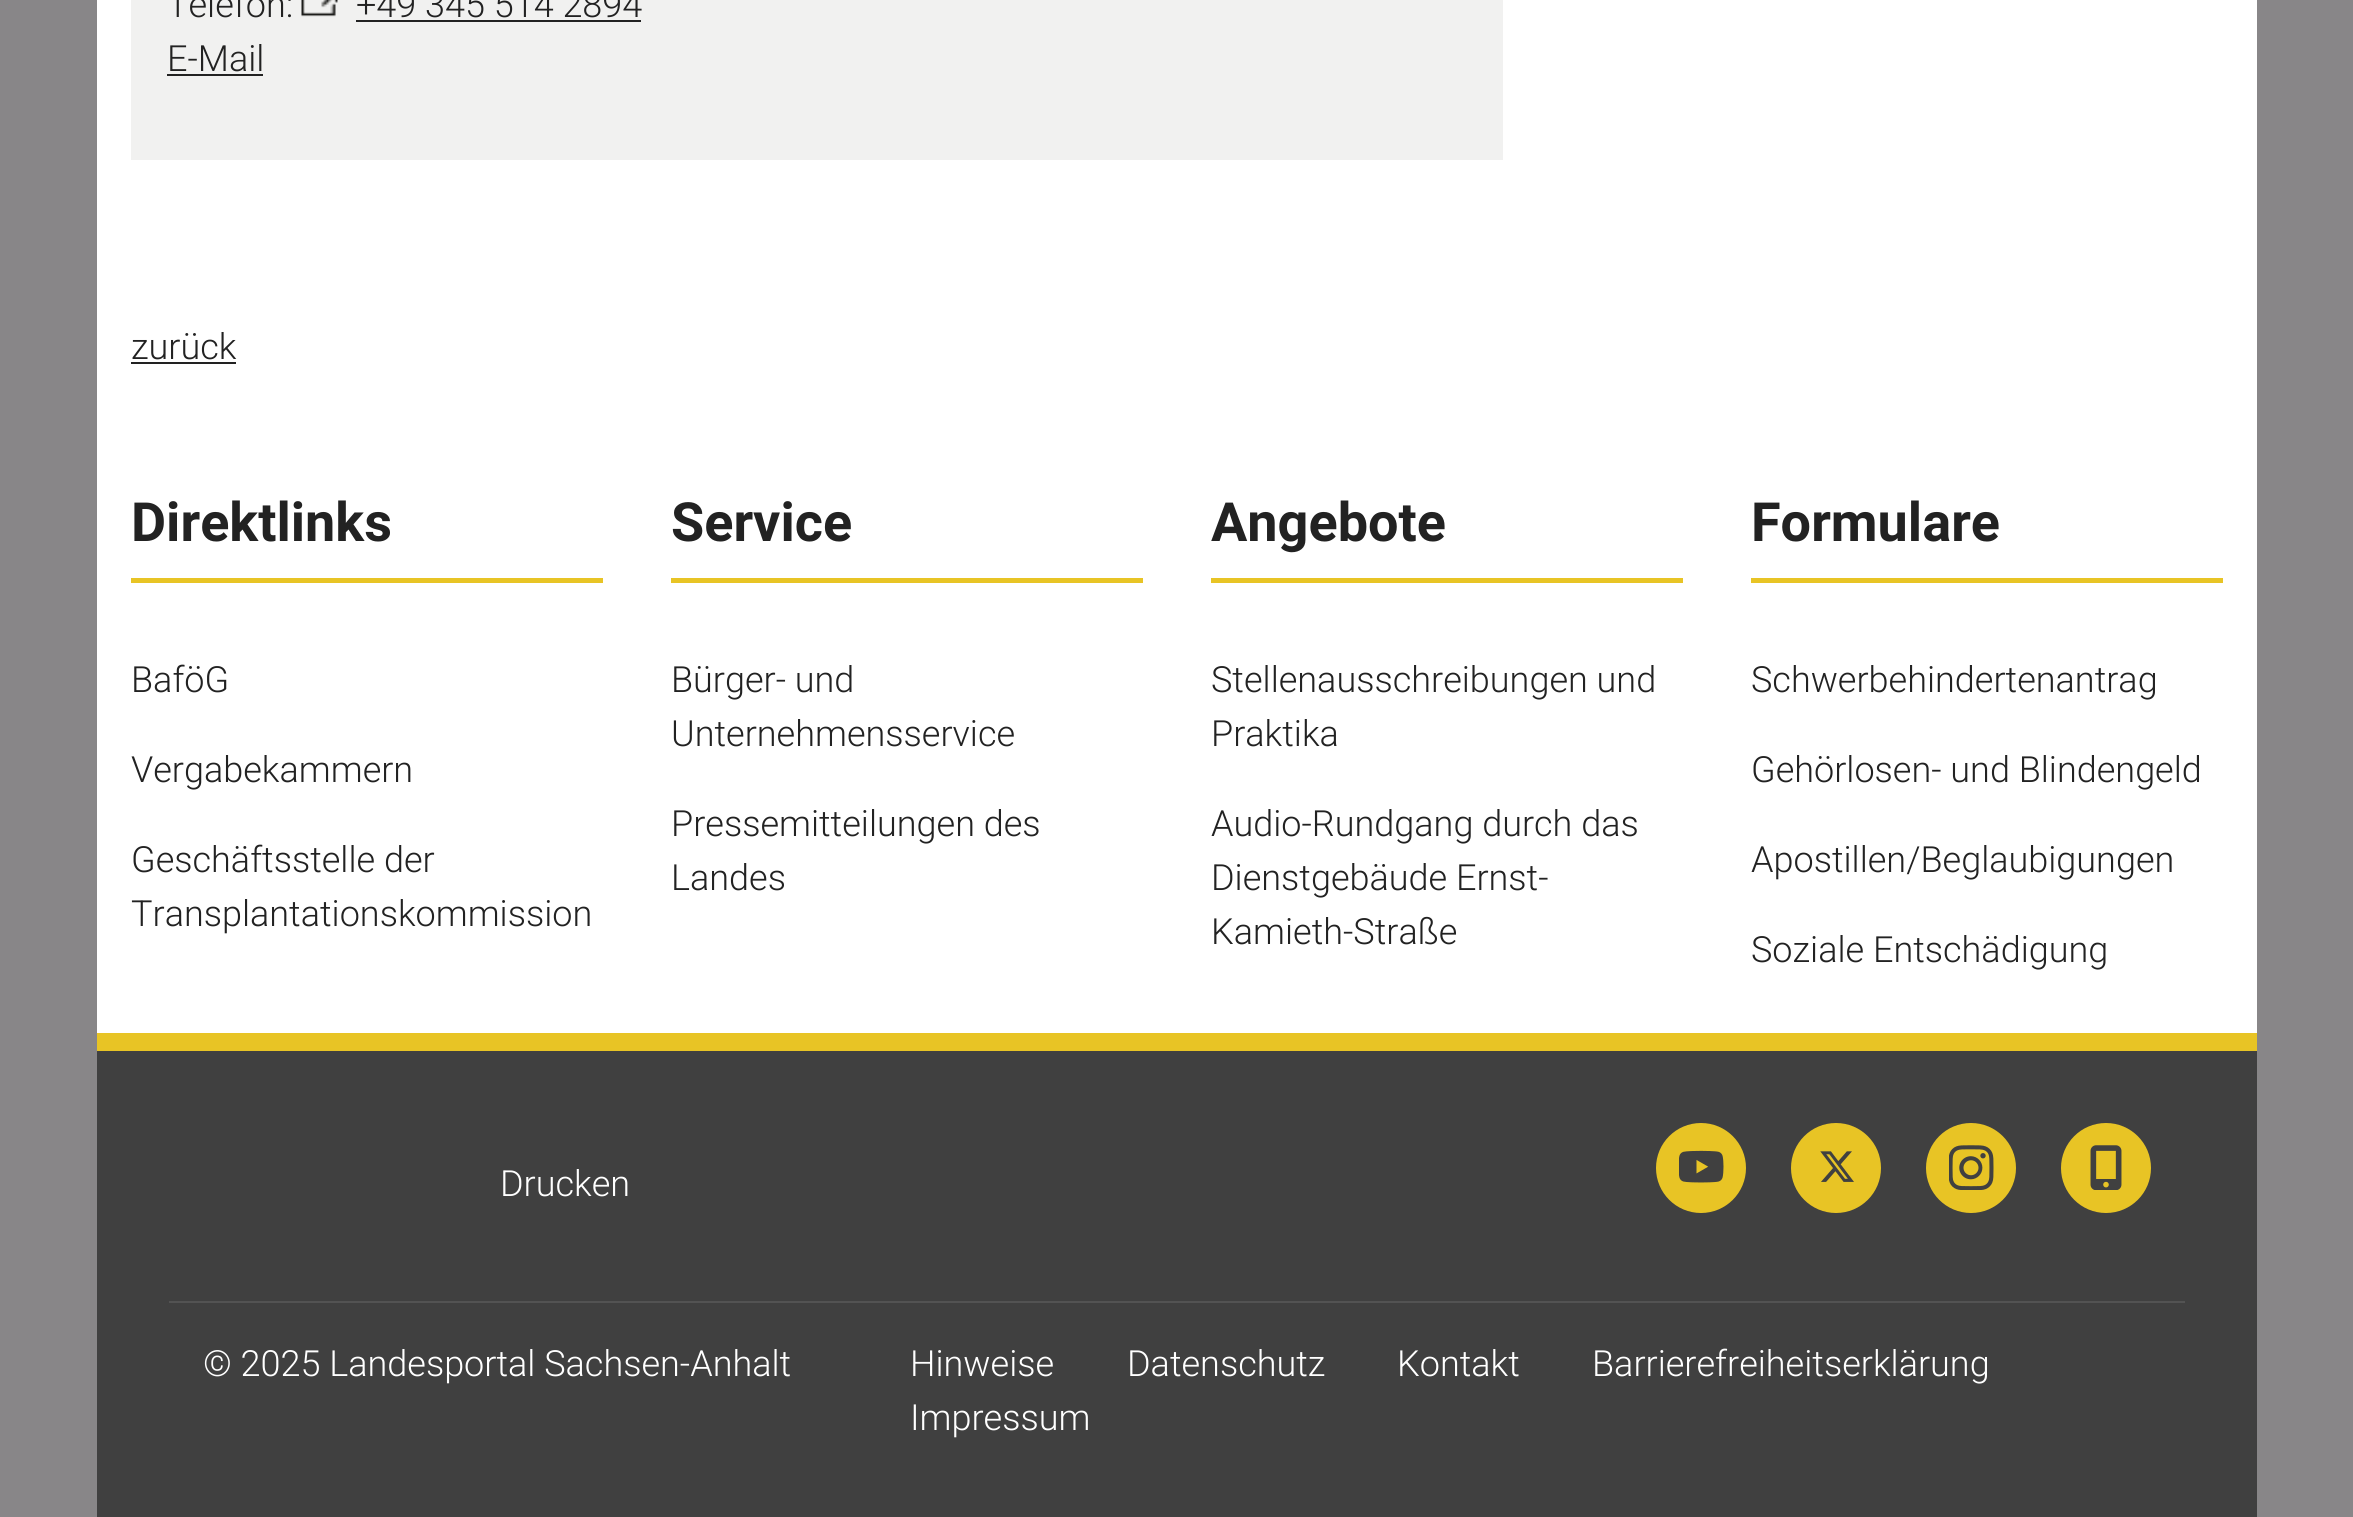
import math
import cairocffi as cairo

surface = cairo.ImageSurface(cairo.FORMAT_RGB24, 2353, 1517)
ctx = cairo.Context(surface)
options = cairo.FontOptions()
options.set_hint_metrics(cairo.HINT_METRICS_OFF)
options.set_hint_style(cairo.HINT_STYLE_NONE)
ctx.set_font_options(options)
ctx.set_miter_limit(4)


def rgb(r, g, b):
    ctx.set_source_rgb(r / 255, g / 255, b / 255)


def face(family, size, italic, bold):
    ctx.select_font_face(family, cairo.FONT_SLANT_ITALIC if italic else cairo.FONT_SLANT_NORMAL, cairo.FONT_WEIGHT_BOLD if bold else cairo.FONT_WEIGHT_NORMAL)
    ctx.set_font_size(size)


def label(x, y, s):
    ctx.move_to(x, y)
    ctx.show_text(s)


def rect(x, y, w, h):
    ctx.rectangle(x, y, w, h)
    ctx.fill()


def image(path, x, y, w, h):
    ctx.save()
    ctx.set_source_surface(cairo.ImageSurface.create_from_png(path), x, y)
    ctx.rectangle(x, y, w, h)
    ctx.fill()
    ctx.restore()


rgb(255, 255, 255)
ctx.paint()
gradient = cairo.LinearGradient(1177, -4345, 1177, 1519)
gradient.add_color_stop_rgba(0, 0.267, 0.267, 0.267, 1)
gradient.add_color_stop_rgba(0.3, 0.533, 0.525, 0.533, 1)
ctx.set_source(gradient)
rect(0, 0, 2353, 1517)
rgb(255, 255, 255)
rect(97, 0, 2160, 1033)
rgb(241, 241, 240)
rect(131, 0, 1372, 160)
face('Roboto Light', 36, 0, 0)
rgb(34, 34, 34)
label(167, 17, 'Telefon:')
image('image0.png', 301, 0, 37, 17)
label(356, 17, '+49 345 514 2894')
rect(356, 20, 285, 2)
label(167, 71, 'E-Mail')
rect(167, 74, 96, 2)
label(131, 359, 'zurück')
rect(131, 362, 105, 2)
rgb(232, 196, 37)
rect(131, 578, 472, 5)
face('Roboto', 54, 0, 1)
rgb(34, 34, 34)
label(131, 541, 'Direktlinks')
face('Roboto Light', 36, 0, 0)
label(131, 692, 'BaföG')
label(131, 782, 'Vergabekammern')
label(131, 872, 'Geschäftsstelle der')
label(131, 926, 'Transplantationskommission')
rgb(232, 196, 37)
rect(671, 578, 472, 5)
face('Roboto', 54, 0, 1)
rgb(34, 34, 34)
label(671, 541, 'Service')
face('Roboto Light', 36, 0, 0)
label(671, 692, 'Bürger- und')
label(671, 746, 'Unternehmensservice')
label(671, 836, 'Pressemitteilungen des')
label(671, 890, 'Landes')
rgb(232, 196, 37)
rect(1211, 578, 472, 5)
face('Roboto', 54, 0, 1)
rgb(34, 34, 34)
label(1211, 541, 'Angebote')
face('Roboto Light', 36, 0, 0)
label(1211, 692, 'Stellenausschreibungen und')
label(1211, 746, 'Praktika')
label(1211, 836, 'Audio-Rundgang durch das')
label(1211, 890, 'Dienstgebäude Ernst-')
label(1211, 944, 'Kamieth-Straße')
rgb(232, 196, 37)
rect(1751, 578, 472, 5)
face('Roboto', 54, 0, 1)
rgb(34, 34, 34)
label(1751, 541, 'Formulare')
face('Roboto Light', 36, 0, 0)
label(1751, 692, 'Schwerbehindertenantrag')
label(1751, 782, 'Gehörlosen- und Blindengeld')
label(1751, 872, 'Apostillen/Beglaubigungen')
label(1751, 962, 'Soziale Entschädigung')
rgb(64, 64, 64)
rect(97, 1051, 2160, 466)
rgb(232, 196, 37)
rect(97, 1033, 2160, 18)
rgb(83, 83, 83)
rect(169, 1301, 2016, 2)
rgb(255, 255, 255)
label(500, 1196, 'Drucken')
rgb(232, 196, 37)
ctx.new_path()
ctx.arc(1701, 1168, 45, 0, 2 * math.pi)
ctx.fill()
image('image1.png', 1679, 1150, 45, 33)
ctx.arc(1836, 1168, 45, 0, 2 * math.pi)
ctx.fill()
image('image2.png', 1820, 1151, 34, 31)
ctx.arc(1971, 1168, 45, 0, 2 * math.pi)
ctx.fill()
image('image3.png', 1949, 1145, 45, 45)
ctx.arc(2106, 1168, 45, 0, 2 * math.pi)
ctx.fill()
image('image4.png', 2090, 1145, 32, 45)
rgb(255, 255, 255)
label(203, 1376, '© 2025 Landesportal Sachsen-Anhalt')
label(910, 1376, 'Hinweise')
label(1127, 1376, 'Datenschutz')
label(1397, 1376, 'Kontakt')
label(1592, 1376, 'Barrierefreiheitserklärung')
label(910, 1430, 'Impressum')
surface.write_to_png('render.png')
